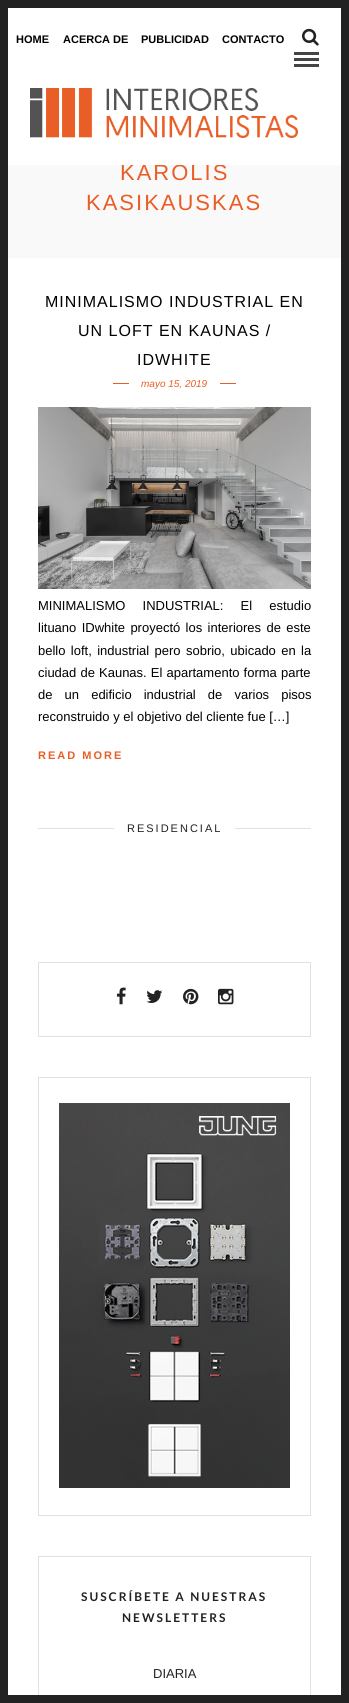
import math
import cairocffi as cairo

surface = cairo.ImageSurface(cairo.FORMAT_RGB24, 349, 1703)
ctx = cairo.Context(surface)
options = cairo.FontOptions()
options.set_hint_metrics(cairo.HINT_METRICS_OFF)
options.set_hint_style(cairo.HINT_STYLE_NONE)
ctx.set_font_options(options)
ctx.set_miter_limit(4)


def rgb(r, g, b):
    ctx.set_source_rgb(r / 255, g / 255, b / 255)


def face(family, size, italic, bold):
    ctx.select_font_face(family, cairo.FONT_SLANT_ITALIC if italic else cairo.FONT_SLANT_NORMAL, cairo.FONT_WEIGHT_BOLD if bold else cairo.FONT_WEIGHT_NORMAL)
    ctx.set_font_size(size)


def label(x, y, s):
    ctx.move_to(x, y)
    ctx.show_text(s)


def tracked(x, y, s, letter, word):
    ctx.move_to(x, y)
    for ch in s:
        ctx.show_text(ch)
        ctx.rel_move_to(letter + word * (ch == ' '), 0)


def rect(x, y, w, h):
    ctx.rectangle(x, y, w, h)
    ctx.fill()


def image(path, x, y, w, h):
    ctx.save()
    ctx.set_source_surface(cairo.ImageSurface.create_from_png(path), x, y)
    ctx.rectangle(x, y, w, h)
    ctx.fill()
    ctx.restore()


rgb(255, 255, 255)
ctx.paint()
rgb(34, 34, 34)
rect(0, 0, 349, 8)
ctx.rectangle(38.5, 1556.5, 272, 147)
rgb(225, 225, 225)
ctx.set_line_width(1)
ctx.stroke()
rgb(34, 34, 34)
rect(0, 1695, 349, 8)
rect(0, 0, 8, 1703)
rgb(249, 249, 249)
rect(8, 118, 333, 140)
face('Liberation Sans', 22, 0, 0)
rgb(233, 94, 38)
tracked(120, 180, 'KAROLIS', 2, 0)
ctx.set_source_rgba(1, 1, 1, 0.95)
rect(8, 118, 333, 47)
face('Liberation Sans', 11, 0, 1)
rgb(0, 0, 0)
label(16, 43, 'HOME')
label(63, 43, 'ACERCA DE')
label(141, 43, 'PUBLICIDAD')
label(222, 43, 'CONTACTO')
image('image0.png', 302, 28, 17, 18)
rgb(68, 68, 68)
rect(294, 52, 25, 3)
rect(294, 58, 25, 3)
rect(294, 64, 25, 3)
image('image1.png', 30, 88, 268, 50)
face('Liberation Sans', 22, 0, 0)
rgb(233, 94, 38)
tracked(86, 210, 'KASIKAUSKAS', 2, 0)
face('Liberation Sans', 16, 0, 0)
rgb(0, 0, 0)
tracked(45, 307, 'MINIMALISMO INDUSTRIAL EN', 1, 0)
tracked(78, 336, 'UN LOFT EN KAUNAS /', 1, 0)
tracked(137, 365, 'IDWHITE', 1, 0)
rgb(233, 94, 39)
rect(113, 383, 123, 1)
rgb(255, 255, 255)
rect(129, 383, 91, 1)
face('Liberation Sans', 10, 1, 0)
rgb(233, 94, 38)
label(141, 387, 'mayo 15, 2019')
image('image2.png', 38, 407, 273, 182)
face('Liberation Sans', 13, 0, 0)
rgb(0, 0, 0)
tracked(38, 610, 'MINIMALISMO INDUSTRIAL: El estudio', 0, 13.5)
tracked(38, 632, 'lituano IDwhite proyectó los interiores de este', 0, 1.75)
tracked(38, 655, 'bello loft, industrial pero sobrio, ubicado en la', 0, 1.75)
tracked(38, 677, 'ciudad de Kaunas. El apartamento forma parte', 0, 0.5)
tracked(38, 699, 'de un edificio industrial de varios pisos', 0, 8.5)
label(38, 721, 'reconstruido y el objetivo del cliente fue […]')
face('Liberation Sans', 11, 0, 1)
rgb(233, 94, 38)
tracked(38, 759, 'READ MORE', 2, 0)
rgb(225, 225, 225)
rect(38, 828, 273, 1)
rgb(255, 255, 255)
rect(114, 828, 121, 1)
face('Liberation Sans', 11, 0, 0)
rgb(34, 34, 34)
tracked(127, 832, 'RESIDENCIAL', 2, 0)
ctx.rectangle(38.5, 962.5, 272, 74)
rgb(225, 225, 225)
ctx.stroke()
image('image3.png', 116, 987, 10, 18)
image('image4.png', 146, 990, 17, 13)
image('image5.png', 183, 988, 16, 17)
image('image6.png', 218, 988, 16, 17)
ctx.rectangle(38.5, 1077.5, 272, 438)
ctx.stroke()
image('image7.png', 59, 1103, 231, 385)
face('Lato', 12, 0, 1)
rgb(34, 34, 34)
tracked(81, 1601, 'SUSCRÍBETE A NUESTRAS', 2, 0)
tracked(122, 1622, 'NEWSLETTERS', 2, 0)
face('Liberation Sans', 13, 0, 0)
label(153, 1678, 'DIARIA')
rect(341, 0, 8, 1703)
surface.write_to_png('render.png')
